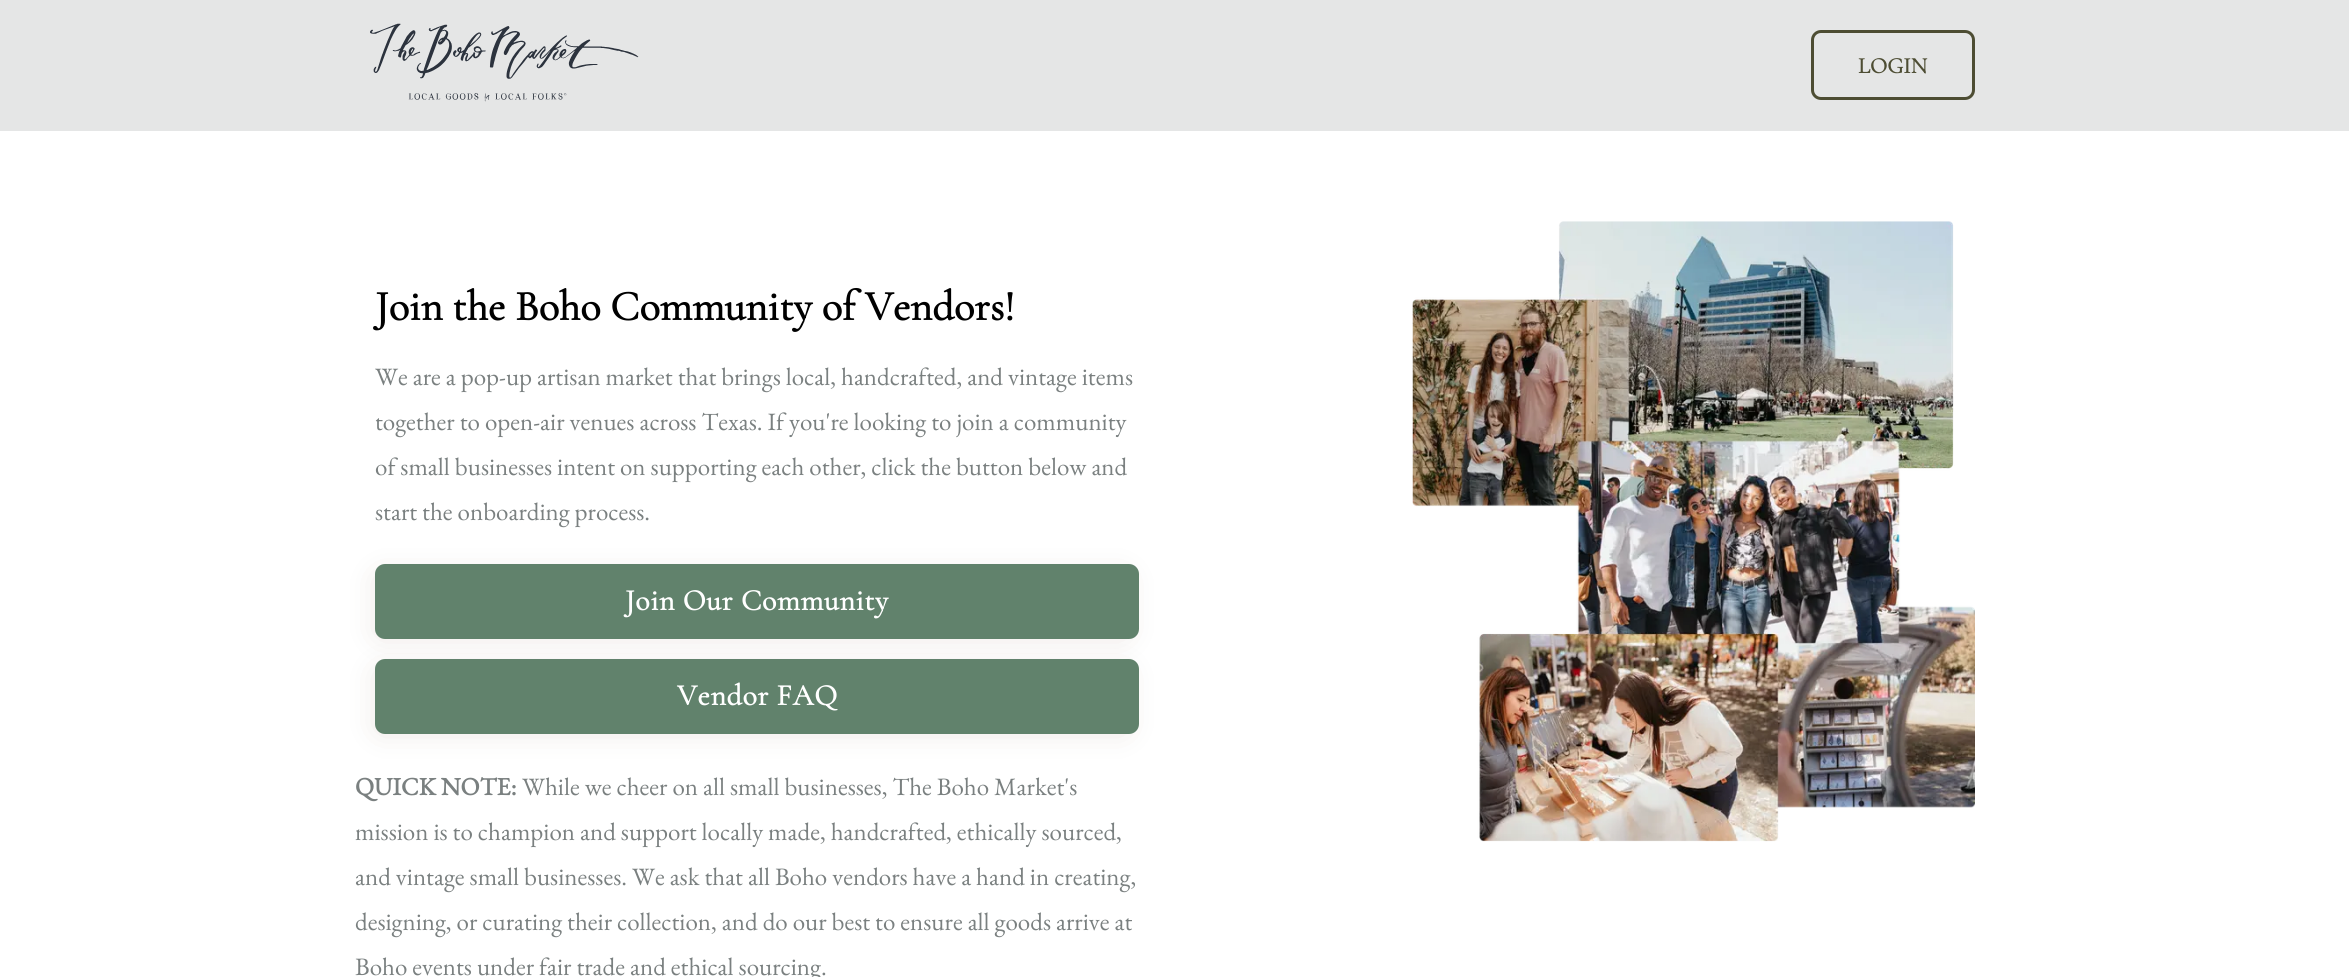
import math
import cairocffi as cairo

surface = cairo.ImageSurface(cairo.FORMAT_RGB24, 2349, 977)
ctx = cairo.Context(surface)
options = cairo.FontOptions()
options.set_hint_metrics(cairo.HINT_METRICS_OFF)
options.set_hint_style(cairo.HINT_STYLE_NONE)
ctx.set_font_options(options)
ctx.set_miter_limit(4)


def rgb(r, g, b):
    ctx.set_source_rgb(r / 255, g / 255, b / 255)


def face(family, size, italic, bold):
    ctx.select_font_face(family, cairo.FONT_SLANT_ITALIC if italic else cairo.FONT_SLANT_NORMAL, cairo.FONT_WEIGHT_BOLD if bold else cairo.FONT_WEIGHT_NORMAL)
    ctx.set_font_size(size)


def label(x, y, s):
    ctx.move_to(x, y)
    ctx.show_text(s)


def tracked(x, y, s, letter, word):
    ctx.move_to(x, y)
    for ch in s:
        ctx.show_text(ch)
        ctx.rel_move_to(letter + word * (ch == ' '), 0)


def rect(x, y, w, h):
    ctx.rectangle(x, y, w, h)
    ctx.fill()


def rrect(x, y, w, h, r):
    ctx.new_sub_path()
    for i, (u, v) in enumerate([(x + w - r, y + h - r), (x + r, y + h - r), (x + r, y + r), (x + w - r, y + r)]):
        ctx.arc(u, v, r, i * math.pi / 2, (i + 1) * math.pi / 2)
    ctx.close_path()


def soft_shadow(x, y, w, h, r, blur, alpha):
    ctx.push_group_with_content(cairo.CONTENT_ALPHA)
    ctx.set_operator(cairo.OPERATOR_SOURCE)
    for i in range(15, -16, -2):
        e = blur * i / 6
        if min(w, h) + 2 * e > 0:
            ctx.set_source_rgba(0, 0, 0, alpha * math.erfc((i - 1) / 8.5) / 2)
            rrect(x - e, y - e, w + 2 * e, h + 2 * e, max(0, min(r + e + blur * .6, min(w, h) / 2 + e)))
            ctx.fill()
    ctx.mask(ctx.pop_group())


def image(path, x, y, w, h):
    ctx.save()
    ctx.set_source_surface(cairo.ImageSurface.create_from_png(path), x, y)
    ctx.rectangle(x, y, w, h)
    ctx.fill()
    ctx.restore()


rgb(255, 255, 255)
ctx.paint()
rgb(229, 230, 230)
rect(0, 0, 2349, 131)
image('image0.png', 370, 23, 269, 79)
rrect(1812.5, 31.5, 161, 67, 8.5)
rgb(77, 77, 51)
ctx.set_line_width(3)
ctx.stroke()
face('Cormorant Garamond', 22.5, 0, 1)
label(1858, 73, 'LOGIN')
face('Cormorant Garamond', 42.5, 0, 1)
rgb(0, 0, 0)
tracked(375, 320, 'Join the Boho Community of Vendors!', 0, -0.25)
face('EB Garamond', 25, 0, 0)
rgb(122, 128, 128)
label(375, 385, 'We are a pop-up artisan market that brings local, handcrafted, and vintage items')
label(375, 430, 'together to open-air venues across Texas. If you\'re looking to join a community')
label(375, 475, 'of small businesses intent on supporting each other, click the button below and')
label(375, 520, 'start the onboarding process.')
rgb(120, 72, 56)
soft_shadow(378, 576, 748, 60, 2.5, 15.5, 0.15)
rgb(97, 130, 108)
rrect(375, 564, 764, 75, 10)
ctx.fill()
face('Cormorant Garamond', 30, 0, 1)
rgb(255, 255, 255)
tracked(625, 610, 'Join Our Community', 0.6, 0)
rgb(120, 72, 56)
soft_shadow(378, 671, 748, 60, 2.5, 15.5, 0.15)
rgb(97, 130, 108)
rrect(375, 659, 764, 75, 10)
ctx.fill()
rgb(255, 255, 255)
tracked(677, 705, 'Vendor FAQ', 0.6, 0)
face('EB Garamond', 25, 0, 1)
rgb(122, 128, 128)
label(355, 795, 'QUICK NOTE:')
face('EB Garamond', 25, 0, 0)
label(522, 795, 'While we cheer on all small businesses, The Boho Market\'s')
label(355, 840, 'mission is to champion and support locally made, handcrafted, ethically sourced,')
label(355, 885, 'and vintage small businesses. We ask that all Boho vendors have a hand in creating,')
label(355, 930, 'designing, or curating their collection, and do our best to ensure all goods arrive at')
label(355, 975, 'Boho events under fair trade and ethical sourcing.')
image('image1.png', 1412, 221, 563, 621)
surface.write_to_png('render.png')
